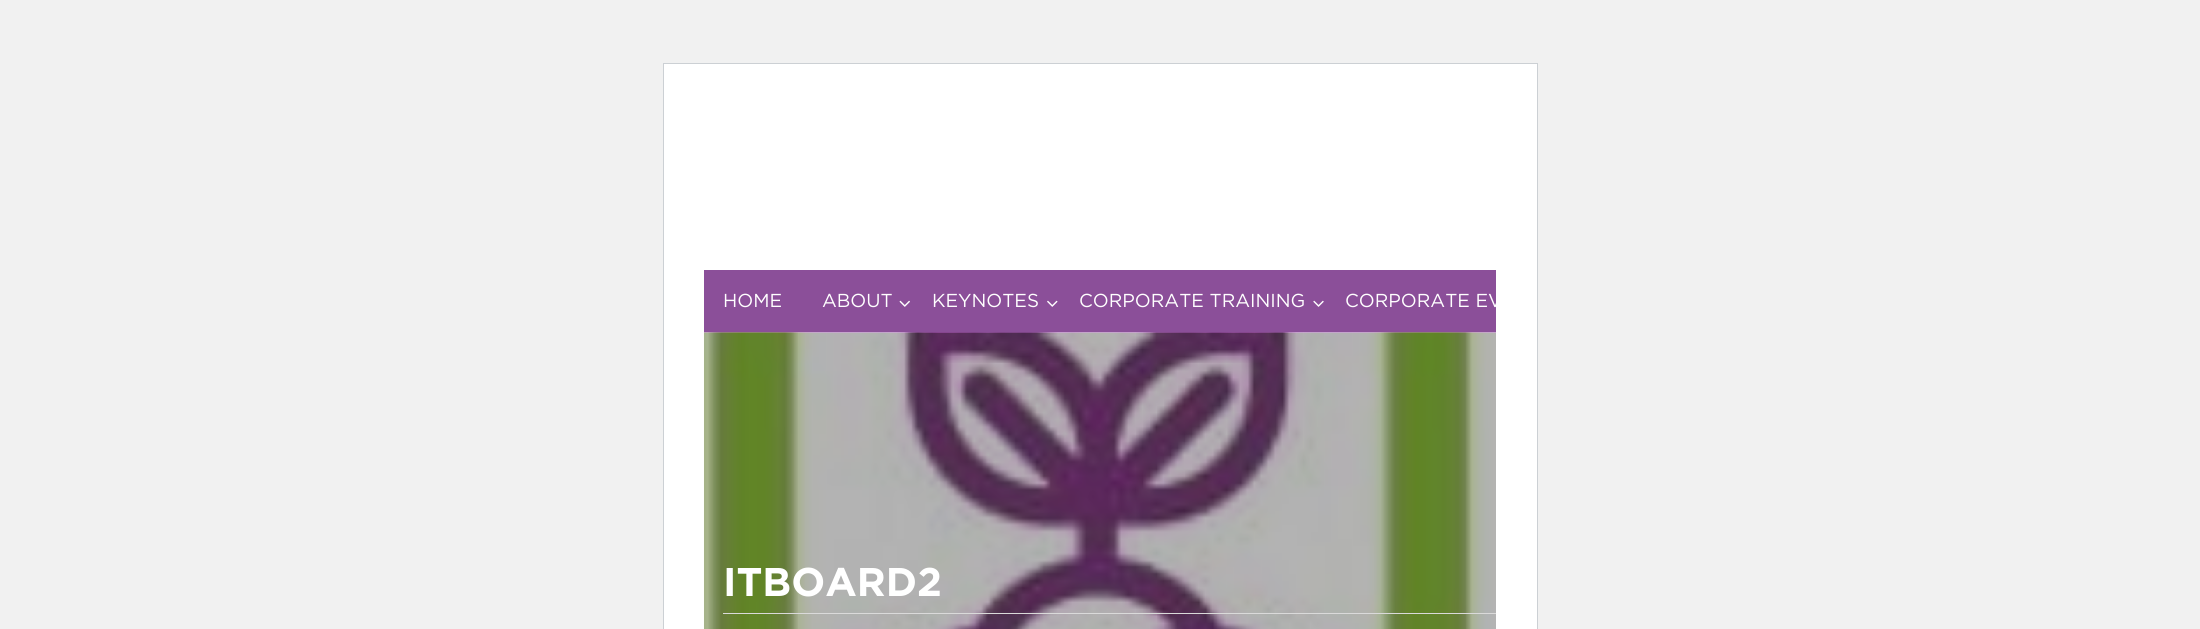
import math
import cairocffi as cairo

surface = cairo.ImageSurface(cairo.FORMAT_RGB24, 2200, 629)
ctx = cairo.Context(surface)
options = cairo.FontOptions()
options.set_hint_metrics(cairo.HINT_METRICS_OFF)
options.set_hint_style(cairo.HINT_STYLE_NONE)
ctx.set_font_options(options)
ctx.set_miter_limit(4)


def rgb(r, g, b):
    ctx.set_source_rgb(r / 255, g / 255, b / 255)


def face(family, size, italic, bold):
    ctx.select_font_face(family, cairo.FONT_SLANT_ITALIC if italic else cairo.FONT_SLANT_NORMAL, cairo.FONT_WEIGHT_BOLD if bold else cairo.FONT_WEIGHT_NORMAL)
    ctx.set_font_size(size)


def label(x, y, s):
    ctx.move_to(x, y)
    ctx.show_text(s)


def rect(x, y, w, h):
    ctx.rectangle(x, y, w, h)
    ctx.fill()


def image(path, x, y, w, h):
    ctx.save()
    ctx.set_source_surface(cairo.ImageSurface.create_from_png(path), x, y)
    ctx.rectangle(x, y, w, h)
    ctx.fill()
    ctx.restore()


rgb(241, 241, 241)
ctx.paint()
rgb(255, 255, 255)
ctx.rectangle(663.5, 63.5, 874, 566)
ctx.fill_preserve()
rgb(204, 208, 212)
ctx.set_line_width(1)
ctx.stroke()
rgb(139, 79, 153)
rect(704, 270, 792, 63)
face('Gotham', 18.75, 0, 0)
rgb(255, 255, 255)
label(723, 307, 'HOME')
label(822, 307, 'ABOUT')
image('image0.png', 899, 300, 11, 7)
label(932, 307, 'KEYNOTES')
image('image1.png', 1047, 300, 11, 7)
label(1079, 307, 'CORPORATE TRAINING')
image('image2.png', 1313, 300, 11, 7)
ctx.save()
ctx.rectangle(704, 84, 792, 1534)
ctx.clip()
label(1345, 307, 'CORPORATE EV')
ctx.restore()
image('image3.png', 703, 332, 793, 297)
rgb(218, 218, 218)
rect(723, 613, 773, 1)
face('Gotham', 40, 0, 1)
rgb(255, 255, 255)
label(723, 596, 'ITBOARD2')
surface.write_to_png('render.png')
